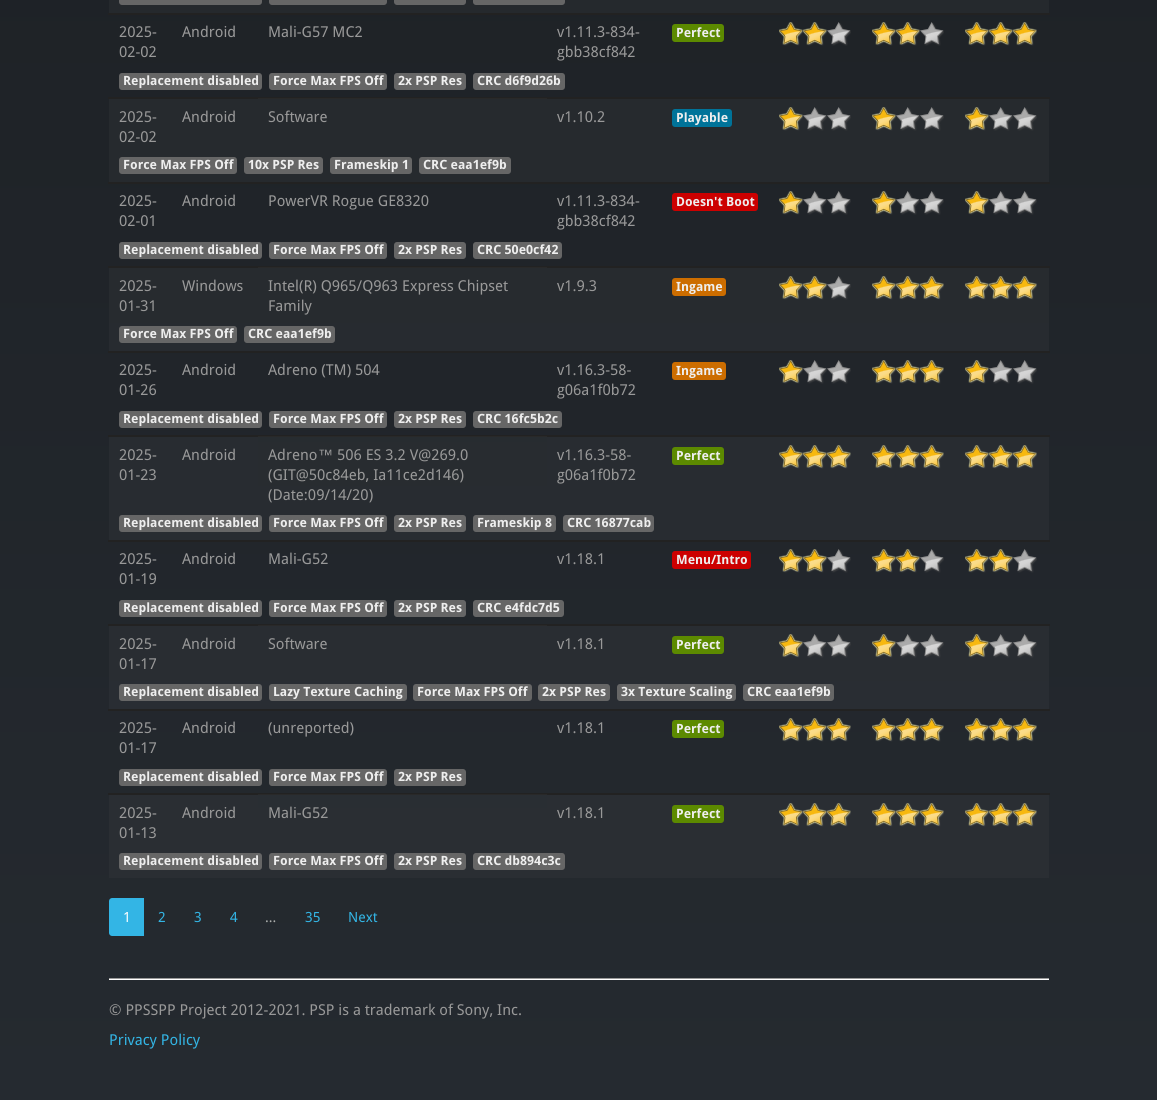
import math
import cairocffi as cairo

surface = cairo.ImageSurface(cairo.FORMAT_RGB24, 1157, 1100)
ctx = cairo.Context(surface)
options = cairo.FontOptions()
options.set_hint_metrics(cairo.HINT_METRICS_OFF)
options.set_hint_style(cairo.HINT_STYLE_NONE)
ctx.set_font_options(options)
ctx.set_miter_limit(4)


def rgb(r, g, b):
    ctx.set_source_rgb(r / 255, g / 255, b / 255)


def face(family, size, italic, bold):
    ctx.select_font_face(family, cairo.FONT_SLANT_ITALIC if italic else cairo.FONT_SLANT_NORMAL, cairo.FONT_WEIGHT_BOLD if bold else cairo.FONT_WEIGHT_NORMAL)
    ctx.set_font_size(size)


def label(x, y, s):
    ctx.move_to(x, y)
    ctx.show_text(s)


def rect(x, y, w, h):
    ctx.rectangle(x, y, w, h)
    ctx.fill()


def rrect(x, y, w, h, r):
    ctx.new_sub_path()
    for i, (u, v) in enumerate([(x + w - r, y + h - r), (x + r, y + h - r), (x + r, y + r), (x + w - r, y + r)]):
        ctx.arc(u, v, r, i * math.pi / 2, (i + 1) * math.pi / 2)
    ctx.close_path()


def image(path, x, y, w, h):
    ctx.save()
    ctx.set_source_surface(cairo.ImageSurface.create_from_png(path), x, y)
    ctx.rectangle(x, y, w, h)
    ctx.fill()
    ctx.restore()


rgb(255, 255, 255)
ctx.paint()
gradient = cairo.LinearGradient(578, -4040, 579, 1100)
gradient.add_color_stop_rgba(0, 0.024, 0.024, 0.024, 1)
gradient.add_color_stop_rgba(1, 0.145, 0.165, 0.188, 1)
ctx.set_source(gradient)
rect(0, 0, 1157, 1100)
gradient = cairo.LinearGradient(578, -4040, 579, 1100)
gradient.add_color_stop_rgba(0, 0.059, 0.059, 0.059, 1)
gradient.add_color_stop_rgba(1, 0.169, 0.188, 0.208, 1)
ctx.set_source(gradient)
rect(258, 795, 289, 55)
rect(258, 626, 289, 55)
rect(258, 437, 289, 75)
rect(258, 268, 289, 55)
rect(258, 99, 289, 55)
rgb(37, 41, 45)
rect(109, 0, 940, 13)
rgb(102, 102, 102)
rrect(119, -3, 143, 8, 3)
ctx.fill()
rrect(269, -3, 118, 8, 3)
ctx.fill()
rrect(394, -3, 72, 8, 3)
ctx.fill()
rrect(473, -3, 92, 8, 3)
ctx.fill()
rgb(34, 34, 34)
rect(108, 13, 942, 2)
face('Droid Sans', 15, 0, 0)
rgb(153, 153, 153)
label(119, 37, '2025-')
label(119, 57, '02-02')
label(182, 37, 'Android')
label(268, 37, 'Mali-G57 MC2')
label(557, 37, 'v1.11.3-834-')
label(557, 57, 'gbb38cf842')
rgb(92, 138, 0)
rrect(672, 24, 52, 18, 3)
ctx.fill()
face('Droid Sans', 12.75, 0, 1)
rgb(238, 238, 238)
label(676, 37, 'Perfect')
image('image0.png', 779, 22, 72, 24)
image('image1.png', 779, 22, 48, 23)
image('image0.png', 872, 22, 72, 24)
image('image1.png', 872, 22, 48, 23)
image('image0.png', 965, 22, 72, 24)
image('image2.png', 965, 22, 72, 23)
rgb(102, 102, 102)
rrect(119, 73, 143, 17, 3)
ctx.fill()
rgb(238, 238, 238)
label(123, 85, 'Replacement disabled')
rgb(102, 102, 102)
rrect(269, 73, 118, 17, 3)
ctx.fill()
rgb(238, 238, 238)
label(273, 85, 'Force Max FPS Off')
rgb(102, 102, 102)
rrect(394, 73, 72, 17, 3)
ctx.fill()
rgb(238, 238, 238)
label(398, 85, '2x PSP Res')
rgb(102, 102, 102)
rrect(473, 73, 92, 17, 3)
ctx.fill()
rgb(238, 238, 238)
label(477, 85, 'CRC d6f9d26b')
rgb(34, 34, 34)
rect(108, 97, 942, 2)
rgb(41, 41, 41)
rect(258, 98, 289, 1)
rgb(38, 42, 46)
rect(109, 99, 149, 55)
face('Droid Sans', 15, 0, 0)
rgb(153, 153, 153)
label(119, 122, '2025-')
label(119, 142, '02-02')
label(182, 122, 'Android')
label(268, 122, 'Software')
rgb(38, 42, 46)
rect(547, 99, 502, 55)
rgb(153, 153, 153)
label(557, 122, 'v1.10.2')
rgb(0, 115, 153)
rrect(672, 109, 60, 18, 3)
ctx.fill()
face('Droid Sans', 12.75, 0, 1)
rgb(238, 238, 238)
label(676, 122, 'Playable')
image('image3.png', 779, 107, 72, 24)
image('image4.png', 779, 107, 24, 23)
image('image3.png', 872, 107, 72, 24)
image('image4.png', 872, 107, 24, 23)
image('image3.png', 965, 107, 72, 24)
image('image4.png', 965, 107, 24, 23)
rgb(38, 42, 46)
rect(109, 154, 940, 28)
rgb(102, 102, 102)
rrect(119, 157, 118, 17, 3)
ctx.fill()
rgb(238, 238, 238)
label(123, 169, 'Force Max FPS Off')
rgb(102, 102, 102)
rrect(244, 157, 79, 17, 3)
ctx.fill()
rgb(238, 238, 238)
label(248, 169, '10x PSP Res')
rgb(102, 102, 102)
rrect(330, 157, 82, 17, 3)
ctx.fill()
rgb(238, 238, 238)
label(334, 169, 'Frameskip 1')
rgb(102, 102, 102)
rrect(419, 157, 92, 17, 3)
ctx.fill()
rgb(238, 238, 238)
label(423, 169, 'CRC eaa1ef9b')
rgb(34, 34, 34)
rect(108, 182, 942, 2)
face('Droid Sans', 15, 0, 0)
rgb(153, 153, 153)
label(119, 206, '2025-')
label(119, 226, '02-01')
label(182, 206, 'Android')
label(268, 206, 'PowerVR Rogue GE8320')
label(557, 206, 'v1.11.3-834-')
label(557, 226, 'gbb38cf842')
rgb(204, 0, 0)
rrect(672, 193, 86, 18, 3)
ctx.fill()
face('Droid Sans', 12.75, 0, 1)
rgb(238, 238, 238)
label(676, 206, 'Doesn\'t Boot')
image('image5.png', 779, 191, 72, 24)
image('image6.png', 779, 191, 24, 23)
image('image5.png', 872, 191, 72, 24)
image('image6.png', 872, 191, 24, 23)
image('image5.png', 965, 191, 72, 24)
image('image6.png', 965, 191, 24, 23)
rgb(102, 102, 102)
rrect(119, 242, 143, 17, 3)
ctx.fill()
rgb(238, 238, 238)
label(123, 254, 'Replacement disabled')
rgb(102, 102, 102)
rrect(269, 242, 118, 17, 3)
ctx.fill()
rgb(238, 238, 238)
label(273, 254, 'Force Max FPS Off')
rgb(102, 102, 102)
rrect(394, 242, 72, 17, 3)
ctx.fill()
rgb(238, 238, 238)
label(398, 254, '2x PSP Res')
rgb(102, 102, 102)
rrect(473, 242, 89, 17, 3)
ctx.fill()
rgb(238, 238, 238)
label(477, 254, 'CRC 50e0cf42')
rgb(34, 34, 34)
rect(108, 266, 942, 2)
rgb(41, 41, 41)
rect(258, 267, 289, 1)
rgb(39, 43, 47)
rect(109, 268, 149, 55)
face('Droid Sans', 15, 0, 0)
rgb(153, 153, 153)
label(119, 291, '2025-')
label(119, 311, '01-31')
label(182, 291, 'Windows')
label(268, 291, 'Intel(R) Q965/Q963 Express Chipset')
label(268, 311, 'Family')
rgb(39, 43, 47)
rect(547, 268, 502, 55)
rgb(153, 153, 153)
label(557, 291, 'v1.9.3')
rgb(204, 109, 0)
rrect(672, 278, 54, 18, 3)
ctx.fill()
face('Droid Sans', 12.75, 0, 1)
rgb(238, 238, 238)
label(676, 291, 'Ingame')
image('image7.png', 779, 276, 72, 24)
image('image8.png', 779, 276, 48, 23)
image('image7.png', 872, 276, 72, 24)
image('image9.png', 872, 276, 72, 23)
image('image7.png', 965, 276, 72, 24)
image('image9.png', 965, 276, 72, 23)
rgb(39, 43, 48)
rect(109, 323, 940, 28)
rgb(102, 102, 102)
rrect(119, 326, 118, 17, 3)
ctx.fill()
rgb(238, 238, 238)
label(123, 338, 'Force Max FPS Off')
rgb(102, 102, 102)
rrect(244, 326, 91, 17, 3)
ctx.fill()
rgb(238, 238, 238)
label(248, 338, 'CRC eaa1ef9b')
rgb(34, 34, 34)
rect(108, 351, 942, 2)
face('Droid Sans', 15, 0, 0)
rgb(153, 153, 153)
label(119, 375, '2025-')
label(119, 395, '01-26')
label(182, 375, 'Android')
label(268, 375, 'Adreno (TM) 504')
label(557, 375, 'v1.16.3-58-')
label(557, 395, 'g06a1f0b72')
rgb(204, 109, 0)
rrect(672, 362, 54, 18, 3)
ctx.fill()
face('Droid Sans', 12.75, 0, 1)
rgb(238, 238, 238)
label(676, 375, 'Ingame')
image('image10.png', 779, 360, 72, 24)
image('image11.png', 779, 360, 24, 23)
image('image10.png', 872, 360, 72, 24)
image('image12.png', 872, 360, 72, 23)
image('image10.png', 965, 360, 72, 24)
image('image11.png', 965, 360, 24, 23)
rgb(102, 102, 102)
rrect(119, 411, 143, 17, 3)
ctx.fill()
rgb(238, 238, 238)
label(123, 423, 'Replacement disabled')
rgb(102, 102, 102)
rrect(269, 411, 118, 17, 3)
ctx.fill()
rgb(238, 238, 238)
label(273, 423, 'Force Max FPS Off')
rgb(102, 102, 102)
rrect(394, 411, 72, 17, 3)
ctx.fill()
rgb(238, 238, 238)
label(398, 423, '2x PSP Res')
rgb(102, 102, 102)
rrect(473, 411, 89, 17, 3)
ctx.fill()
rgb(238, 238, 238)
label(477, 423, 'CRC 16fc5b2c')
rgb(34, 34, 34)
rect(108, 435, 942, 2)
rgb(41, 41, 41)
rect(258, 436, 289, 1)
rgb(40, 44, 49)
rect(109, 437, 149, 75)
face('Droid Sans', 15, 0, 0)
rgb(153, 153, 153)
label(119, 460, '2025-')
label(119, 480, '01-23')
label(182, 460, 'Android')
label(268, 460, 'Adreno')
face('Liberation Sans', 15, 0, 0)
label(318, 460, '™')
face('Droid Sans', 15, 0, 0)
label(337, 460, '506 ES 3.2 V@269.0')
label(268, 480, '(GIT@50c84eb, Ia11ce2d146)')
label(268, 500, '(Date:09/14/20)')
rgb(40, 44, 49)
rect(547, 437, 502, 75)
rgb(153, 153, 153)
label(557, 460, 'v1.16.3-58-')
label(557, 480, 'g06a1f0b72')
rgb(92, 138, 0)
rrect(672, 447, 52, 18, 3)
ctx.fill()
face('Droid Sans', 12.75, 0, 1)
rgb(238, 238, 238)
label(676, 460, 'Perfect')
image('image13.png', 779, 445, 72, 24)
image('image14.png', 779, 445, 72, 23)
image('image13.png', 872, 445, 72, 24)
image('image14.png', 872, 445, 72, 23)
image('image13.png', 965, 445, 72, 24)
image('image14.png', 965, 445, 72, 23)
rgb(40, 44, 49)
rect(109, 512, 940, 28)
rgb(102, 102, 102)
rrect(119, 515, 143, 17, 3)
ctx.fill()
rgb(238, 238, 238)
label(123, 527, 'Replacement disabled')
rgb(102, 102, 102)
rrect(269, 515, 118, 17, 3)
ctx.fill()
rgb(238, 238, 238)
label(273, 527, 'Force Max FPS Off')
rgb(102, 102, 102)
rrect(394, 515, 72, 17, 3)
ctx.fill()
rgb(238, 238, 238)
label(398, 527, '2x PSP Res')
rgb(102, 102, 102)
rrect(473, 515, 83, 17, 3)
ctx.fill()
rgb(238, 238, 238)
label(477, 527, 'Frameskip 8')
rgb(102, 102, 102)
rrect(563, 515, 91, 17, 3)
ctx.fill()
rgb(238, 238, 238)
label(567, 527, 'CRC 16877cab')
rgb(34, 34, 34)
rect(108, 540, 942, 2)
face('Droid Sans', 15, 0, 0)
rgb(153, 153, 153)
label(119, 564, '2025-')
label(119, 584, '01-19')
label(182, 564, 'Android')
label(268, 564, 'Mali-G52')
label(557, 564, 'v1.18.1')
rgb(204, 0, 0)
rrect(672, 551, 79, 18, 3)
ctx.fill()
face('Droid Sans', 12.75, 0, 1)
rgb(238, 238, 238)
label(676, 564, 'Menu/Intro')
image('image15.png', 779, 549, 72, 24)
image('image16.png', 779, 549, 48, 23)
image('image15.png', 872, 549, 72, 24)
image('image16.png', 872, 549, 48, 23)
image('image15.png', 965, 549, 72, 24)
image('image16.png', 965, 549, 48, 23)
rgb(102, 102, 102)
rrect(119, 600, 143, 17, 3)
ctx.fill()
rgb(238, 238, 238)
label(123, 612, 'Replacement disabled')
rgb(102, 102, 102)
rrect(269, 600, 118, 17, 3)
ctx.fill()
rgb(238, 238, 238)
label(273, 612, 'Force Max FPS Off')
rgb(102, 102, 102)
rrect(394, 600, 72, 17, 3)
ctx.fill()
rgb(238, 238, 238)
label(398, 612, '2x PSP Res')
rgb(102, 102, 102)
rrect(473, 600, 91, 17, 3)
ctx.fill()
rgb(238, 238, 238)
label(477, 612, 'CRC e4fdc7d5')
rgb(34, 34, 34)
rect(108, 624, 942, 2)
rgb(41, 41, 41)
rect(258, 625, 289, 1)
rgb(41, 45, 50)
rect(109, 626, 149, 55)
face('Droid Sans', 15, 0, 0)
rgb(153, 153, 153)
label(119, 649, '2025-')
label(119, 669, '01-17')
label(182, 649, 'Android')
label(268, 649, 'Software')
rgb(41, 45, 50)
rect(547, 626, 502, 55)
rgb(153, 153, 153)
label(557, 649, 'v1.18.1')
rgb(92, 138, 0)
rrect(672, 636, 52, 18, 3)
ctx.fill()
face('Droid Sans', 12.75, 0, 1)
rgb(238, 238, 238)
label(676, 649, 'Perfect')
image('image17.png', 779, 634, 72, 24)
image('image18.png', 779, 634, 24, 23)
image('image17.png', 872, 634, 72, 24)
image('image18.png', 872, 634, 24, 23)
image('image17.png', 965, 634, 72, 24)
image('image18.png', 965, 634, 24, 23)
rgb(41, 45, 51)
rect(109, 681, 940, 28)
rgb(102, 102, 102)
rrect(119, 684, 143, 17, 3)
ctx.fill()
rgb(238, 238, 238)
label(123, 696, 'Replacement disabled')
rgb(102, 102, 102)
rrect(269, 684, 138, 17, 3)
ctx.fill()
rgb(238, 238, 238)
label(273, 696, 'Lazy Texture Caching')
rgb(102, 102, 102)
rrect(413, 684, 119, 17, 3)
ctx.fill()
rgb(238, 238, 238)
label(417, 696, 'Force Max FPS Off')
rgb(102, 102, 102)
rrect(538, 684, 72, 17, 3)
ctx.fill()
rgb(238, 238, 238)
label(542, 696, '2x PSP Res')
rgb(102, 102, 102)
rrect(617, 684, 119, 17, 3)
ctx.fill()
rgb(238, 238, 238)
label(621, 696, '3x Texture Scaling')
rgb(102, 102, 102)
rrect(743, 684, 91, 17, 3)
ctx.fill()
rgb(238, 238, 238)
label(747, 696, 'CRC eaa1ef9b')
rgb(34, 34, 34)
rect(108, 709, 942, 2)
face('Droid Sans', 15, 0, 0)
rgb(153, 153, 153)
label(119, 733, '2025-')
label(119, 753, '01-17')
label(182, 733, 'Android')
label(268, 733, '(unreported)')
label(557, 733, 'v1.18.1')
rgb(92, 138, 0)
rrect(672, 720, 52, 18, 3)
ctx.fill()
face('Droid Sans', 12.75, 0, 1)
rgb(238, 238, 238)
label(676, 733, 'Perfect')
image('image19.png', 779, 718, 72, 24)
image('image20.png', 779, 718, 72, 23)
image('image19.png', 872, 718, 72, 24)
image('image20.png', 872, 718, 72, 23)
image('image19.png', 965, 718, 72, 24)
image('image20.png', 965, 718, 72, 23)
rgb(102, 102, 102)
rrect(119, 769, 143, 17, 3)
ctx.fill()
rgb(238, 238, 238)
label(123, 781, 'Replacement disabled')
rgb(102, 102, 102)
rrect(269, 769, 118, 17, 3)
ctx.fill()
rgb(238, 238, 238)
label(273, 781, 'Force Max FPS Off')
rgb(102, 102, 102)
rrect(394, 769, 72, 17, 3)
ctx.fill()
rgb(238, 238, 238)
label(398, 781, '2x PSP Res')
rgb(34, 34, 34)
rect(108, 793, 942, 2)
rgb(41, 41, 41)
rect(258, 794, 289, 1)
rgb(42, 46, 51)
rect(109, 795, 149, 55)
face('Droid Sans', 15, 0, 0)
rgb(153, 153, 153)
label(119, 818, '2025-')
label(119, 838, '01-13')
label(182, 818, 'Android')
label(268, 818, 'Mali-G52')
rgb(42, 46, 51)
rect(547, 795, 502, 55)
rgb(153, 153, 153)
label(557, 818, 'v1.18.1')
rgb(92, 138, 0)
rrect(672, 805, 52, 18, 3)
ctx.fill()
face('Droid Sans', 12.75, 0, 1)
rgb(238, 238, 238)
label(676, 818, 'Perfect')
image('image21.png', 779, 803, 72, 24)
image('image22.png', 779, 803, 72, 23)
image('image21.png', 872, 803, 72, 24)
image('image22.png', 872, 803, 72, 23)
image('image21.png', 965, 803, 72, 24)
image('image22.png', 965, 803, 72, 23)
rgb(42, 46, 51)
rect(109, 850, 940, 28)
rgb(102, 102, 102)
rrect(119, 853, 143, 17, 3)
ctx.fill()
rgb(238, 238, 238)
label(123, 865, 'Replacement disabled')
rgb(102, 102, 102)
rrect(269, 853, 118, 17, 3)
ctx.fill()
rgb(238, 238, 238)
label(273, 865, 'Force Max FPS Off')
rgb(102, 102, 102)
rrect(394, 853, 72, 17, 3)
ctx.fill()
rgb(238, 238, 238)
label(398, 865, '2x PSP Res')
rgb(102, 102, 102)
rrect(473, 853, 92, 17, 3)
ctx.fill()
rgb(238, 238, 238)
label(477, 865, 'CRC db894c3c')
rgb(51, 181, 229)
ctx.new_path()
ctx.move_to(112, 898)
ctx.line_to(144, 898)
ctx.line_to(144, 936)
ctx.line_to(112, 936)
ctx.curve_to(110.5, 936, 109, 934.5, 109, 933)
ctx.line_to(109, 901)
ctx.curve_to(109, 899.5, 110.5, 898, 112, 898)
ctx.close_path()
ctx.fill()
face('Droid Sans', 14, 0, 0)
rgb(255, 255, 255)
label(123, 922, '1')
rgb(51, 181, 229)
label(158, 922, '2')
label(194, 922, '3')
label(230, 922, '4')
rgb(173, 175, 174)
label(265, 922, '...')
rgb(51, 181, 229)
label(305, 922, '35')
label(348, 922, 'Next')
rgb(153, 153, 153)
rect(109, 978, 940, 1)
rgb(255, 255, 255)
rect(109, 979, 940, 1)
face('Droid Sans', 15, 0, 0)
rgb(153, 153, 153)
label(109, 1015, '© PPSSPP Project 2012-2021. PSP is a trademark of Sony, Inc.')
rgb(51, 181, 229)
label(109, 1045, 'Privacy Policy')
surface.write_to_png('render.png')
